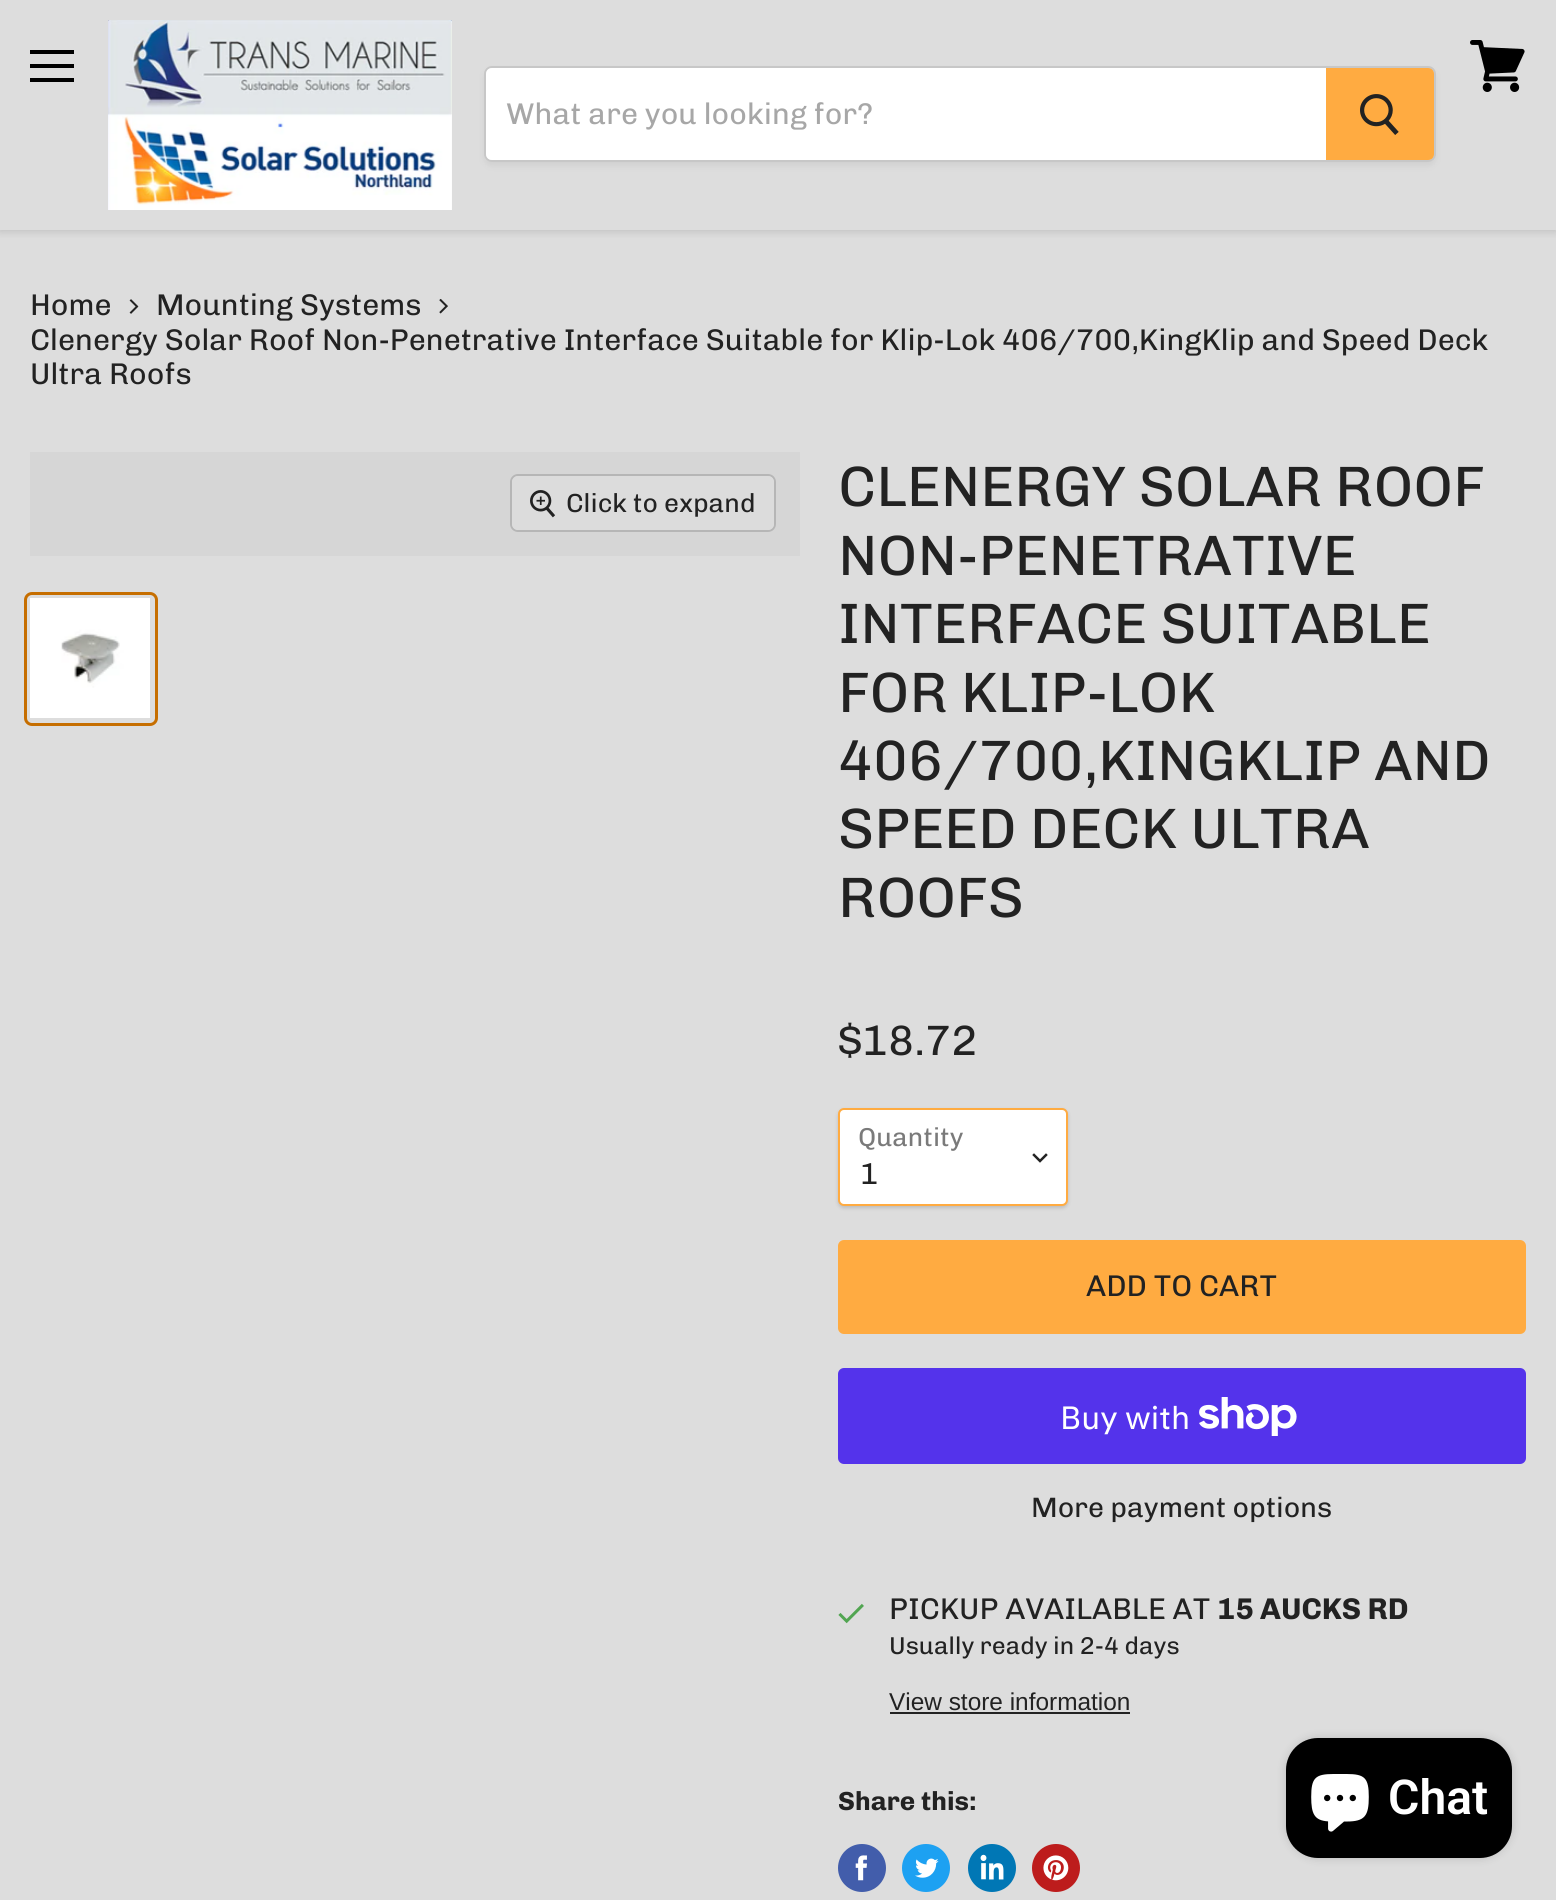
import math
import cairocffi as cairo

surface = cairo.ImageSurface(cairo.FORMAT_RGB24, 1556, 1900)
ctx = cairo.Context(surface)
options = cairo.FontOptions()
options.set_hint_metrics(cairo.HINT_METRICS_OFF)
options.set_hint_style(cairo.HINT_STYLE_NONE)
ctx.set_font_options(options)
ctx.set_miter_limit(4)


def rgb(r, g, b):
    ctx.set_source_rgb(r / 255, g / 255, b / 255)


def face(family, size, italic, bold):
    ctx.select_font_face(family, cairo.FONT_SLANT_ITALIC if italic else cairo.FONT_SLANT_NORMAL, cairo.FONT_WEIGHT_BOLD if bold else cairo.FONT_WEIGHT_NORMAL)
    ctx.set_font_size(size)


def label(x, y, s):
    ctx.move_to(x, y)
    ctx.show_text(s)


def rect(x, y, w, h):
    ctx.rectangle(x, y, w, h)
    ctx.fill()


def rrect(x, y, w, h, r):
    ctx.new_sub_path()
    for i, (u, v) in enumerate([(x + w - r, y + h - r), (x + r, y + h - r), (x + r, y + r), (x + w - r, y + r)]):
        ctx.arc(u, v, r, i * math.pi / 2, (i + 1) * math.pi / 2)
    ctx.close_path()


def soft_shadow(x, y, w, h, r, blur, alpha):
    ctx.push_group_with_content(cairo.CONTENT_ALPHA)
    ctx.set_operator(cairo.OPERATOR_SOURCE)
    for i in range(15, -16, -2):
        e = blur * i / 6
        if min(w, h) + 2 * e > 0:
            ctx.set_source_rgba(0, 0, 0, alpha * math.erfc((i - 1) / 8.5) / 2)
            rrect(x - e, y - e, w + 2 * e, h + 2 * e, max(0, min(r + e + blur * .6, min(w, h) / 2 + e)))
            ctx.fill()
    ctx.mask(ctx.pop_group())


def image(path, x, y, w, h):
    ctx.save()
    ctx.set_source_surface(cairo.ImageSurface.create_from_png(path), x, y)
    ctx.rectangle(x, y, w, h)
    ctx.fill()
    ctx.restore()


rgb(221, 221, 221)
ctx.paint()
ctx.save()
ctx.rectangle(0, 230, 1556, 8)
ctx.clip()
rgb(111, 111, 111)
soft_shadow(0, 2, 1556, 230, 0, 4, 0.25)
ctx.restore()
rgb(0, 0, 0)
rect(30, 50, 44, 4)
rect(30, 64, 44, 4)
rect(30, 78, 44, 4)
image('image0.png', 1470, 40, 55, 52)
image('image1.png', 108, 20, 344, 190)
ctx.save()
ctx.set_fill_rule(cairo.FILL_RULE_EVEN_ODD)
ctx.new_path()
ctx.move_to(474, 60)
ctx.line_to(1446, 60)
ctx.line_to(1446, 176)
ctx.line_to(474, 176)
ctx.close_path()
ctx.move_to(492, 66)
ctx.line_to(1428, 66)
ctx.curve_to(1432.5, 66, 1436, 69.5, 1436, 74)
ctx.line_to(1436, 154)
ctx.curve_to(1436, 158.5, 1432.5, 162, 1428, 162)
ctx.line_to(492, 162)
ctx.curve_to(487.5, 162, 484, 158.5, 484, 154)
ctx.line_to(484, 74)
ctx.curve_to(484, 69.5, 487.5, 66, 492, 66)
ctx.close_path()
ctx.clip()
rgb(111, 111, 111)
soft_shadow(484, 70, 952, 96, 8, 3, 0.11)
ctx.restore()
rrect(485, 67, 950, 94, 7)
ctx.set_source_rgba(0.435, 0.435, 0.435, 0.2)
ctx.stroke()
rgb(255, 255, 255)
ctx.new_path()
ctx.move_to(492, 68)
ctx.line_to(1326, 68)
ctx.line_to(1326, 160)
ctx.line_to(492, 160)
ctx.curve_to(488.5, 160, 486, 157.5, 486, 154)
ctx.line_to(486, 74)
ctx.curve_to(486, 70.5, 488.5, 68, 492, 68)
ctx.close_path()
ctx.fill()
face('Chivo', 30, 0, 0)
rgb(167, 167, 167)
label(506, 124, 'What are you looking for?')
rgb(255, 171, 65)
ctx.new_path()
ctx.move_to(1327, 69)
ctx.line_to(1428, 69)
ctx.curve_to(1431, 69, 1433, 71, 1433, 74)
ctx.line_to(1433, 154)
ctx.curve_to(1433, 157, 1431, 159, 1428, 159)
ctx.line_to(1327, 159)
ctx.close_path()
ctx.fill_preserve()
ctx.stroke()
image('image2.png', 1360, 94, 39, 41)
rgb(34, 34, 34)
label(30, 315, 'Home')
image('image3.png', 129, 299, 10, 15)
label(156, 315, 'Mounting Systems')
image('image4.png', 439, 298, 9, 16)
label(30, 350, 'Clenergy Solar Roof Non-Penetrative Interface Suitable for Klip-Lok 406/700,KingKlip and Speed Deck')
label(30, 384, 'Ultra Roofs')
rgb(214, 214, 214)
rect(30, 452, 770, 104)
rrect(511, 475, 264, 56, 7)
rgb(182, 182, 182)
ctx.stroke()
ctx.set_source_rgba(0.867, 0.867, 0.867, 0.9)
rrect(512, 476, 262, 54, 6)
ctx.fill()
image('image5.png', 530, 490, 26, 28)
face('Chivo', 26.25, 0, 0)
rgb(34, 34, 34)
label(566, 512, 'Click to expand')
rrect(25.5, 593.5, 131, 131, 6.5)
rgb(198, 110, 0)
ctx.set_line_width(3)
ctx.stroke()
image('image6.png', 30, 598, 120, 120)
face('Chivo', 57, 0, 0)
rgb(34, 34, 34)
label(838, 506, 'CLENERGY SOLAR ROOF')
label(838, 575, 'NON-PENETRATIVE')
label(838, 643, 'INTERFACE SUITABLE')
label(838, 712, 'FOR KLIP-LOK')
label(838, 780, '406/700,KINGKLIP AND')
label(838, 848, 'SPEED DECK ULTRA')
label(838, 917, 'ROOFS')
face('Chivo', 42.5, 0, 0)
label(838, 1055, '$18.72')
rgb(0, 0, 0)
soft_shadow(838, 1110, 230, 98, 6, 2, 0.15)
rgb(255, 255, 255)
rrect(839, 1109, 228, 96, 5)
ctx.fill_preserve()
rgb(255, 171, 65)
ctx.set_line_width(2)
ctx.stroke()
face('Chivo', 26, 0, 0)
rgb(122, 122, 122)
label(858, 1146, 'Quantity')
ctx.new_path()
ctx.move_to(1040, 1161)
ctx.line_to(1046, 1155)
ctx.move_to(1040, 1161)
ctx.line_to(1034, 1155)
rgb(34, 34, 34)
ctx.set_line_width(2.5)
ctx.set_line_cap(cairo.LINE_CAP_SQUARE)
ctx.stroke()
face('Chivo', 30, 0, 0)
label(860, 1184, '1')
rgb(255, 171, 65)
rrect(839, 1241, 686, 92, 5)
ctx.fill_preserve()
ctx.set_line_width(2)
ctx.set_line_cap(cairo.LINE_CAP_BUTT)
ctx.stroke()
rgb(34, 34, 34)
label(1086, 1296, 'ADD TO CART')
rgb(84, 51, 235)
rrect(838, 1368, 688, 96, 6)
ctx.fill()
face('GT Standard', 32, 0, 0)
rgb(255, 255, 255)
label(1060, 1429, 'Buy with')
image('image7.png', 1199, 1397, 98, 39)
face('Chivo', 28.1, 0, 0)
rgb(34, 34, 34)
label(1031, 1517, 'More payment options')
image('image8.png', 838, 1603, 26, 21)
face('Chivo', 30, 0, 0)
label(889, 1619, 'PICKUP AVAILABLE AT')
face('Chivo', 30, 0, 1)
label(1217, 1619, '15 AUCKS RD')
face('Chivo', 24.4, 0, 0)
label(889, 1654, 'Usually ready in 2-4 days')
face('Liberation Sans', 24.4, 0, 0)
label(889, 1710, 'View store information')
rect(890, 1712, 240, 2)
face('Chivo', 26.25, 0, 1)
label(838, 1810, 'Share this:')
rgb(66, 93, 171)
ctx.new_path()
ctx.arc(862, 1868, 24, 0, 2 * math.pi)
ctx.fill()
image('image9.png', 855, 1855, 12, 26)
rgb(29, 161, 242)
ctx.arc(926, 1868, 24, 0, 2 * math.pi)
ctx.fill()
image('image10.png', 915, 1858, 24, 20)
rgb(0, 119, 181)
ctx.arc(992, 1868, 24, 0, 2 * math.pi)
ctx.fill()
image('image11.png', 980, 1854, 24, 26)
rgb(189, 28, 28)
ctx.arc(1056, 1868, 24, 0, 2 * math.pi)
ctx.fill()
image('image12.png', 1043, 1855, 26, 26)
rgb(0, 0, 0)
soft_shadow(1286, 1738, 226, 120, 32, 5, 0.15)
rgb(0, 0, 0)
rrect(1286, 1738, 226, 120, 32)
ctx.fill()
image('image13.png', 1311, 1774, 58, 58)
face('Roboto SemiBold', 48, 0, 0)
rgb(255, 255, 255)
label(1388, 1814, 'Chat')
surface.write_to_png('render.png')
